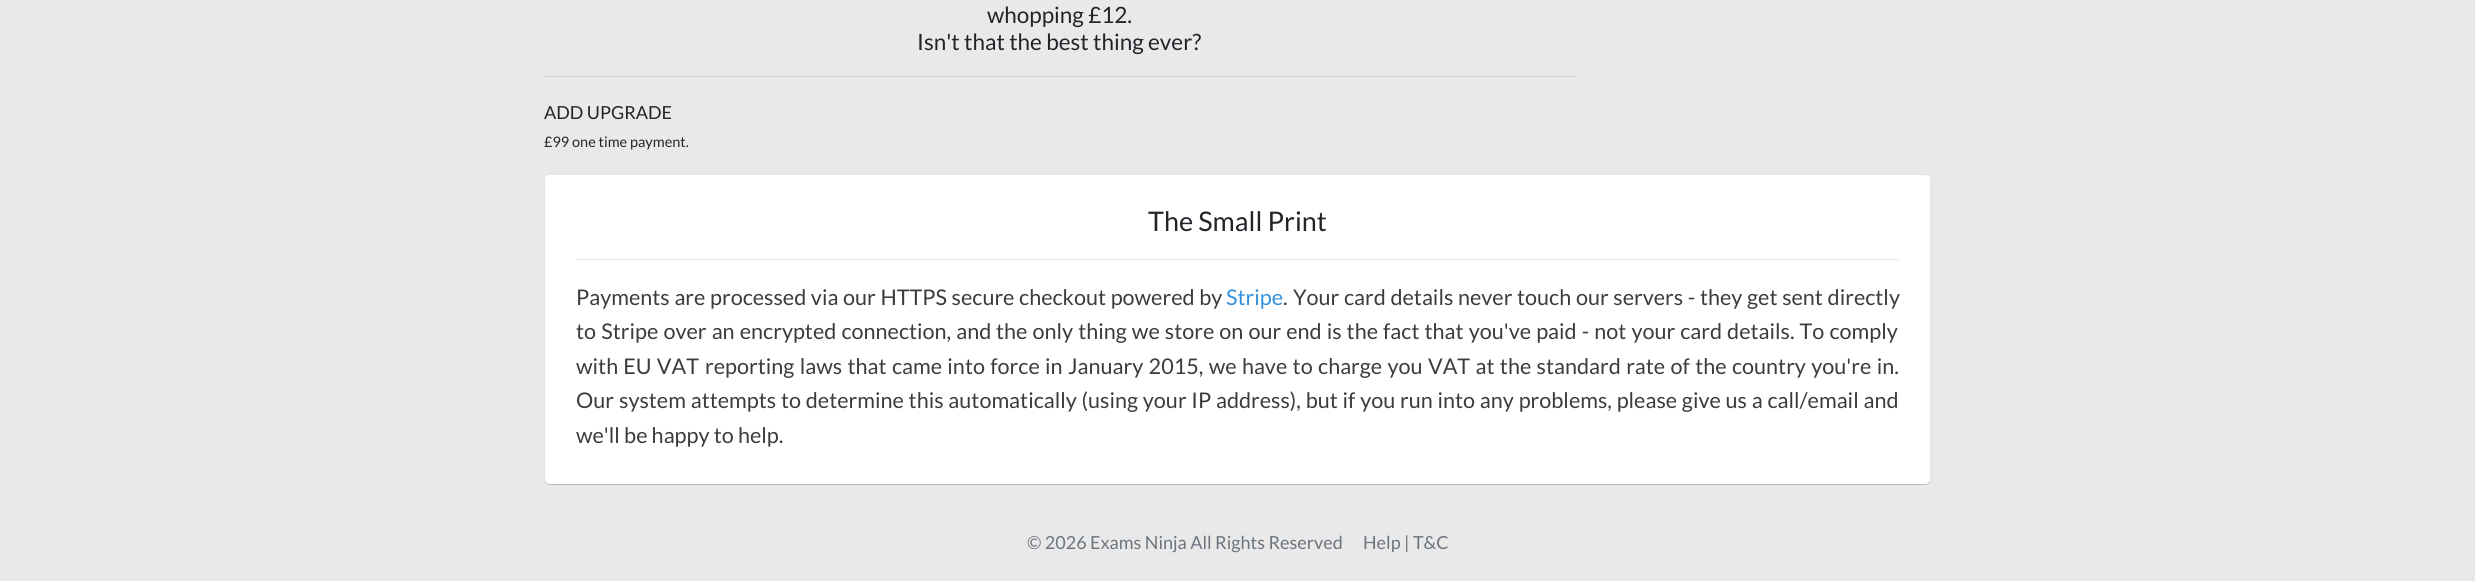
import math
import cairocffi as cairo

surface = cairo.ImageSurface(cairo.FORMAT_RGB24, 2475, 581)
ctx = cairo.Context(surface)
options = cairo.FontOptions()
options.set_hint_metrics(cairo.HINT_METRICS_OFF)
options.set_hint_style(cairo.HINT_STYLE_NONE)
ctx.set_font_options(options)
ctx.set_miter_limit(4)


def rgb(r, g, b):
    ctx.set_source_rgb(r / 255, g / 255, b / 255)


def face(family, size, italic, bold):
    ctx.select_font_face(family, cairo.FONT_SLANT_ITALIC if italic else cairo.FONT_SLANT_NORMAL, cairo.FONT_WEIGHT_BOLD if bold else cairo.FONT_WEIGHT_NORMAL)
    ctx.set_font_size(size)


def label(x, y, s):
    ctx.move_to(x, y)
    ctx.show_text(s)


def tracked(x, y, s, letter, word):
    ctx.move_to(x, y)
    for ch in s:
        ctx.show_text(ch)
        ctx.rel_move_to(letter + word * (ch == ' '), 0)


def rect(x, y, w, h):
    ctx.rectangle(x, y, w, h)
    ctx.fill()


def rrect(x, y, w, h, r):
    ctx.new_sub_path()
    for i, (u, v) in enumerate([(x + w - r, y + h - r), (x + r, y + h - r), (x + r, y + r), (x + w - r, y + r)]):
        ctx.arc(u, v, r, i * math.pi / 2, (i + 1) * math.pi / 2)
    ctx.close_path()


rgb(233, 233, 234)
ctx.paint()
face('Lato', 22.5, 0, 0)
rgb(33, 37, 41)
label(987, 23, 'whopping £12.')
label(917, 50, 'Isn\'t that the best thing ever?')
rgb(210, 210, 211)
rect(544, 76, 1031, 1)
face('Lato', 18, 0, 0)
rgb(33, 37, 41)
label(544, 119, 'ADD UPGRADE')
face('Lato', 14.5, 0, 0)
label(544, 147, '£99 one time payment.')
rgb(186, 186, 187)
ctx.new_path()
ctx.move_to(544, 479)
ctx.curve_to(544, 482, 547, 485, 550, 485)
ctx.line_to(1925, 485)
ctx.curve_to(1928, 485, 1931, 482, 1931, 479)
ctx.curve_to(1930, 482, 1928, 484, 1925, 484)
ctx.line_to(550, 484)
ctx.curve_to(547, 484, 545, 482, 544, 479)
ctx.close_path()
ctx.fill()
rgb(255, 255, 255)
rrect(544, 174, 1387, 310, 6)
ctx.fill()
rgb(227, 227, 227)
ctx.set_fill_rule(cairo.FILL_RULE_EVEN_ODD)
ctx.new_path()
ctx.move_to(550, 174)
ctx.line_to(1925, 174)
ctx.curve_to(1928, 174, 1931, 177, 1931, 180)
ctx.line_to(1931, 478)
ctx.curve_to(1931, 481, 1928, 484, 1925, 484)
ctx.line_to(550, 484)
ctx.curve_to(547, 484, 544, 481, 544, 478)
ctx.line_to(544, 180)
ctx.curve_to(544, 177, 547, 174, 550, 174)
ctx.close_path()
ctx.move_to(550, 175)
ctx.line_to(1925, 175)
ctx.curve_to(1928, 175, 1930, 177, 1930, 180)
ctx.line_to(1930, 478)
ctx.curve_to(1930, 481, 1928, 484, 1925, 484)
ctx.line_to(550, 484)
ctx.curve_to(547, 484, 545, 481, 545, 478)
ctx.line_to(545, 180)
ctx.curve_to(545, 177, 547, 175, 550, 175)
ctx.close_path()
ctx.fill()
face('Lato', 27, 0, 0)
rgb(33, 37, 41)
label(1148, 231, 'The Small Print')
rgb(230, 230, 230)
rect(576, 259, 1323, 1)
face('Lato', 21.6, 0, 0)
rgb(60, 60, 60)
tracked(576, 305, 'Payments are processed via our HTTPS secure checkout powered by', 0, 0.5)
rgb(52, 144, 220)
label(1226, 305, 'Stripe')
rgb(60, 60, 60)
label(1283, 305, '.')
tracked(1293, 305, 'Your card details never touch our servers - they get sent directly', 0, 0.5)
tracked(576, 339, 'to Stripe over an encrypted connection, and', 0, 1)
tracked(996, 339, 'the only thing we store on our end is the fact that you\'ve paid - not your card details. To comply', 0, 0.9)
tracked(576, 374, 'with EU VAT', 0, 1)
tracked(705, 374, 'reporting laws that came into force in January 2015, we have to charge you VAT at the standard rate of the country you\'re in.', 0, 1.2)
label(576, 408, 'Our')
tracked(619, 408, 'system attempts to determine this automatically (using your IP address), but if you run into any problems, please give us a call/email and', 0, 0.6)
label(576, 443, 'we\'ll be happy to help.')
face('Lato', 18, 0, 0)
rgb(108, 117, 125)
label(1027, 549, '© 2026 Exams Ninja All Rights Reserved')
label(1363, 549, 'Help | T&C')
surface.write_to_png('render.png')
